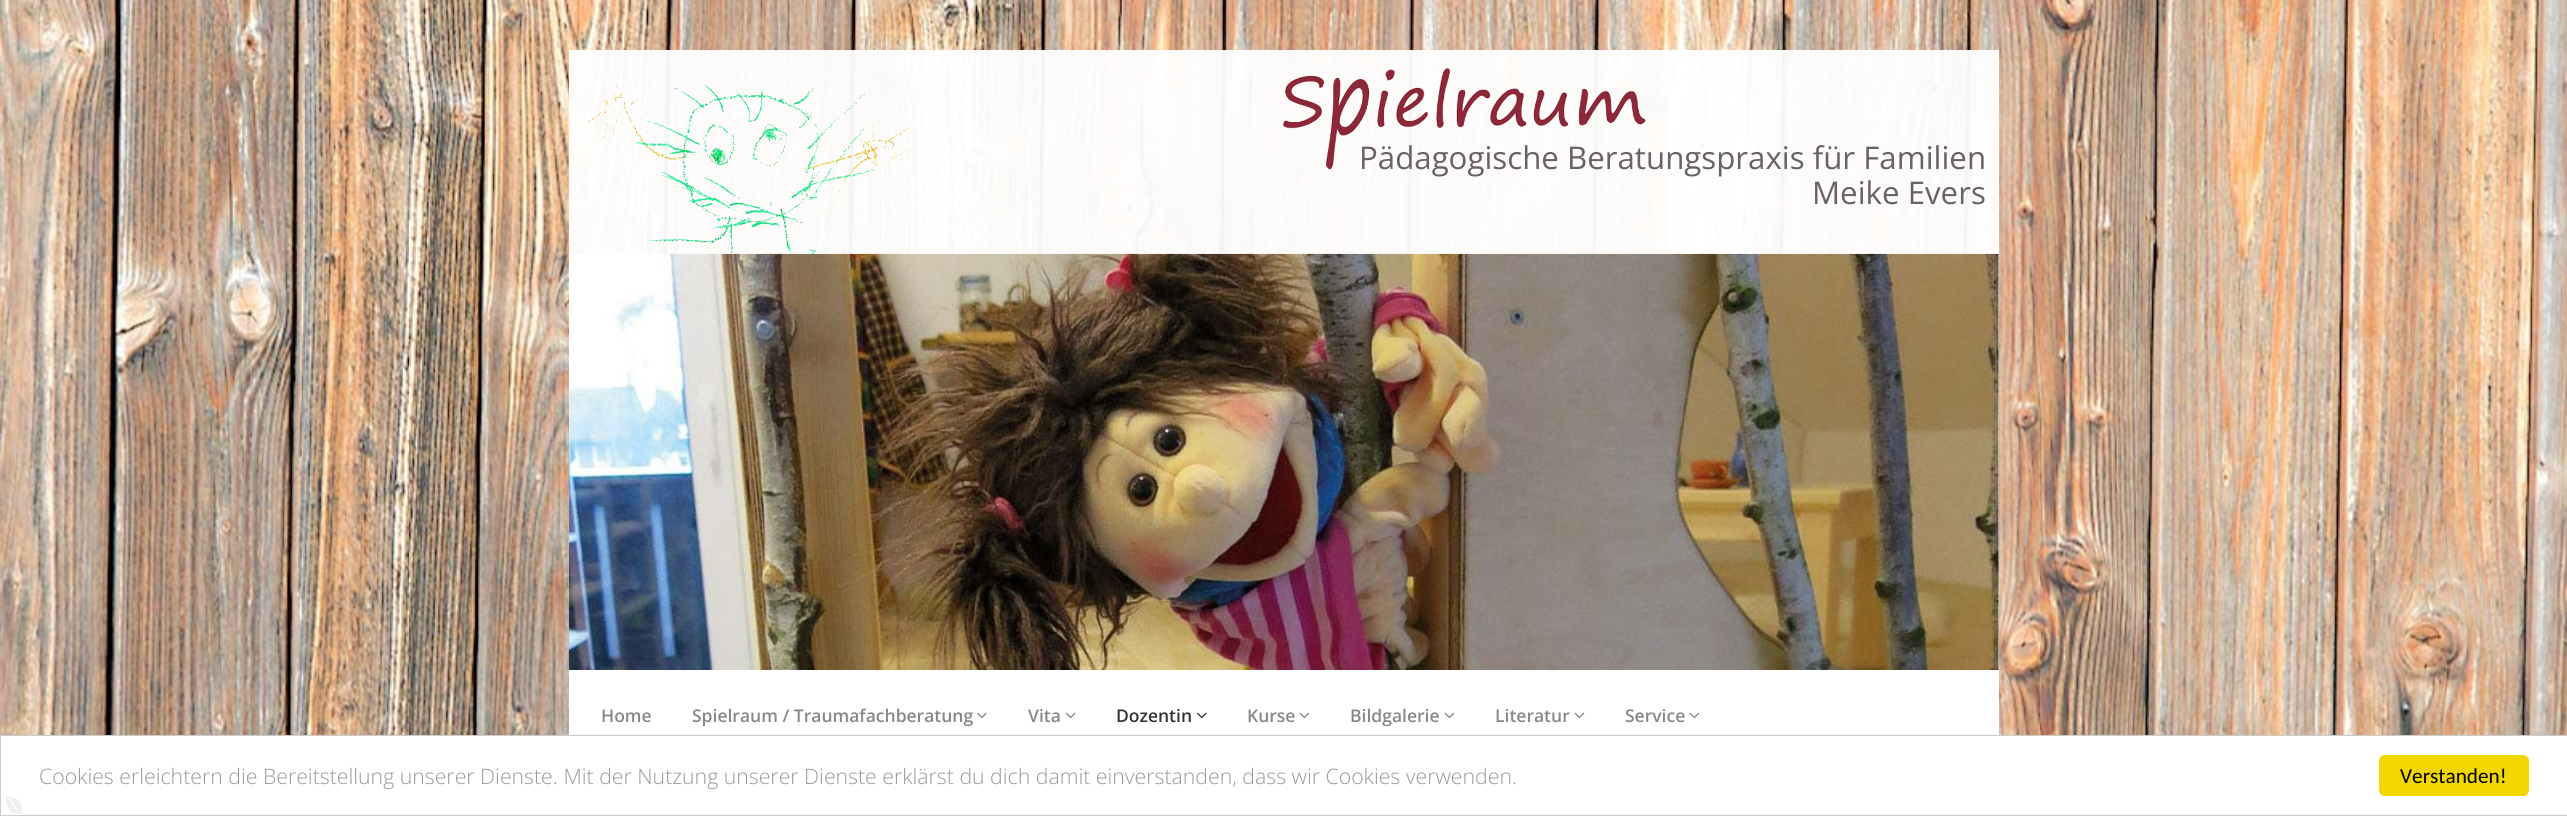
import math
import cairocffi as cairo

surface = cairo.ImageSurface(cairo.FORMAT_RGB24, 2567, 816)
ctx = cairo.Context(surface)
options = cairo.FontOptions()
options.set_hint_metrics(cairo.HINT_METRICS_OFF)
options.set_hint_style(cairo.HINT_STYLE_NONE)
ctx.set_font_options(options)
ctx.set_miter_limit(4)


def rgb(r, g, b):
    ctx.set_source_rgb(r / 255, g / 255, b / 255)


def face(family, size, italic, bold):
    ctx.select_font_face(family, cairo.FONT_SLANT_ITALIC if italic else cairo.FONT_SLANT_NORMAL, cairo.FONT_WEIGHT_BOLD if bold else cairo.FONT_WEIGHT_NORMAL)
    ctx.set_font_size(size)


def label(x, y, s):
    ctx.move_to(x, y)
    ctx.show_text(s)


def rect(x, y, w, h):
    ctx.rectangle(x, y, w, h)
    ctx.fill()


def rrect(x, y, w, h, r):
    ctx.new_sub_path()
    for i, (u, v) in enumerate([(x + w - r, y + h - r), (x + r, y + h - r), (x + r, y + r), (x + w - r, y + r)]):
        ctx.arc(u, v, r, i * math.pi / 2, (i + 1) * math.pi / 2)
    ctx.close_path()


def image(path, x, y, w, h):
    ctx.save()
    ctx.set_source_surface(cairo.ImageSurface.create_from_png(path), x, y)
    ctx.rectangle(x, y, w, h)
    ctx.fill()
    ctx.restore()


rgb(255, 255, 255)
ctx.paint()
image('image0.png', 0, 0, 2567, 735)
ctx.set_source_rgba(1, 1, 1, 0.95)
rect(569, 50, 1430, 620)
image('image1.png', 588, 83, 325, 171)
face('Open Sans', 31.25, 0, 0)
rgb(105, 98, 99)
label(1359, 169, 'Pädagogische Beratungspraxis für Familien')
image('image2.png', 1283, 68, 363, 102)
label(1812, 204, 'Meike Evers')
image('image3.png', 568, 253, 1431, 417)
rgb(255, 255, 255)
rect(569, 670, 1430, 65)
face('Open Sans SemiBold', 17.5, 0, 0)
rgb(136, 136, 136)
label(601, 722, 'Home')
label(692, 722, 'Spielraum / Traumafachberatung')
image('image4.png', 977, 712, 10, 7)
label(1028, 722, 'Vita')
image('image5.png', 1065, 712, 11, 7)
rgb(51, 51, 51)
label(1116, 722, 'Dozentin')
image('image6.png', 1197, 712, 10, 7)
rgb(136, 136, 136)
label(1247, 722, 'Kurse')
image('image7.png', 1299, 712, 11, 7)
label(1350, 722, 'Bildgalerie')
image('image7.png', 1444, 712, 11, 7)
label(1495, 722, 'Literatur')
image('image7.png', 1574, 712, 11, 7)
label(1625, 722, 'Service')
image('image7.png', 1689, 712, 11, 7)
ctx.rectangle(0.5, 735.5, 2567, 80)
rgb(204, 204, 204)
ctx.set_line_width(1)
ctx.stroke()
face('Open Sans Light', 21.25, 0, 0)
rgb(153, 153, 153)
label(39, 784, 'Cookies erleichtern die Bereitstellung unserer Dienste. Mit der Nutzung unserer Dienste erklärst du dich damit einverstanden, dass wir Cookies verwenden.')
rgb(241, 214, 0)
rrect(2379, 755, 150, 41, 6)
ctx.fill()
face('Carlito', 21.25, 0, 0)
rgb(0, 0, 0)
label(2400, 783, 'Verstanden!')
image('image8.png', 5, 796, 19, 20)
surface.write_to_png('render.png')
